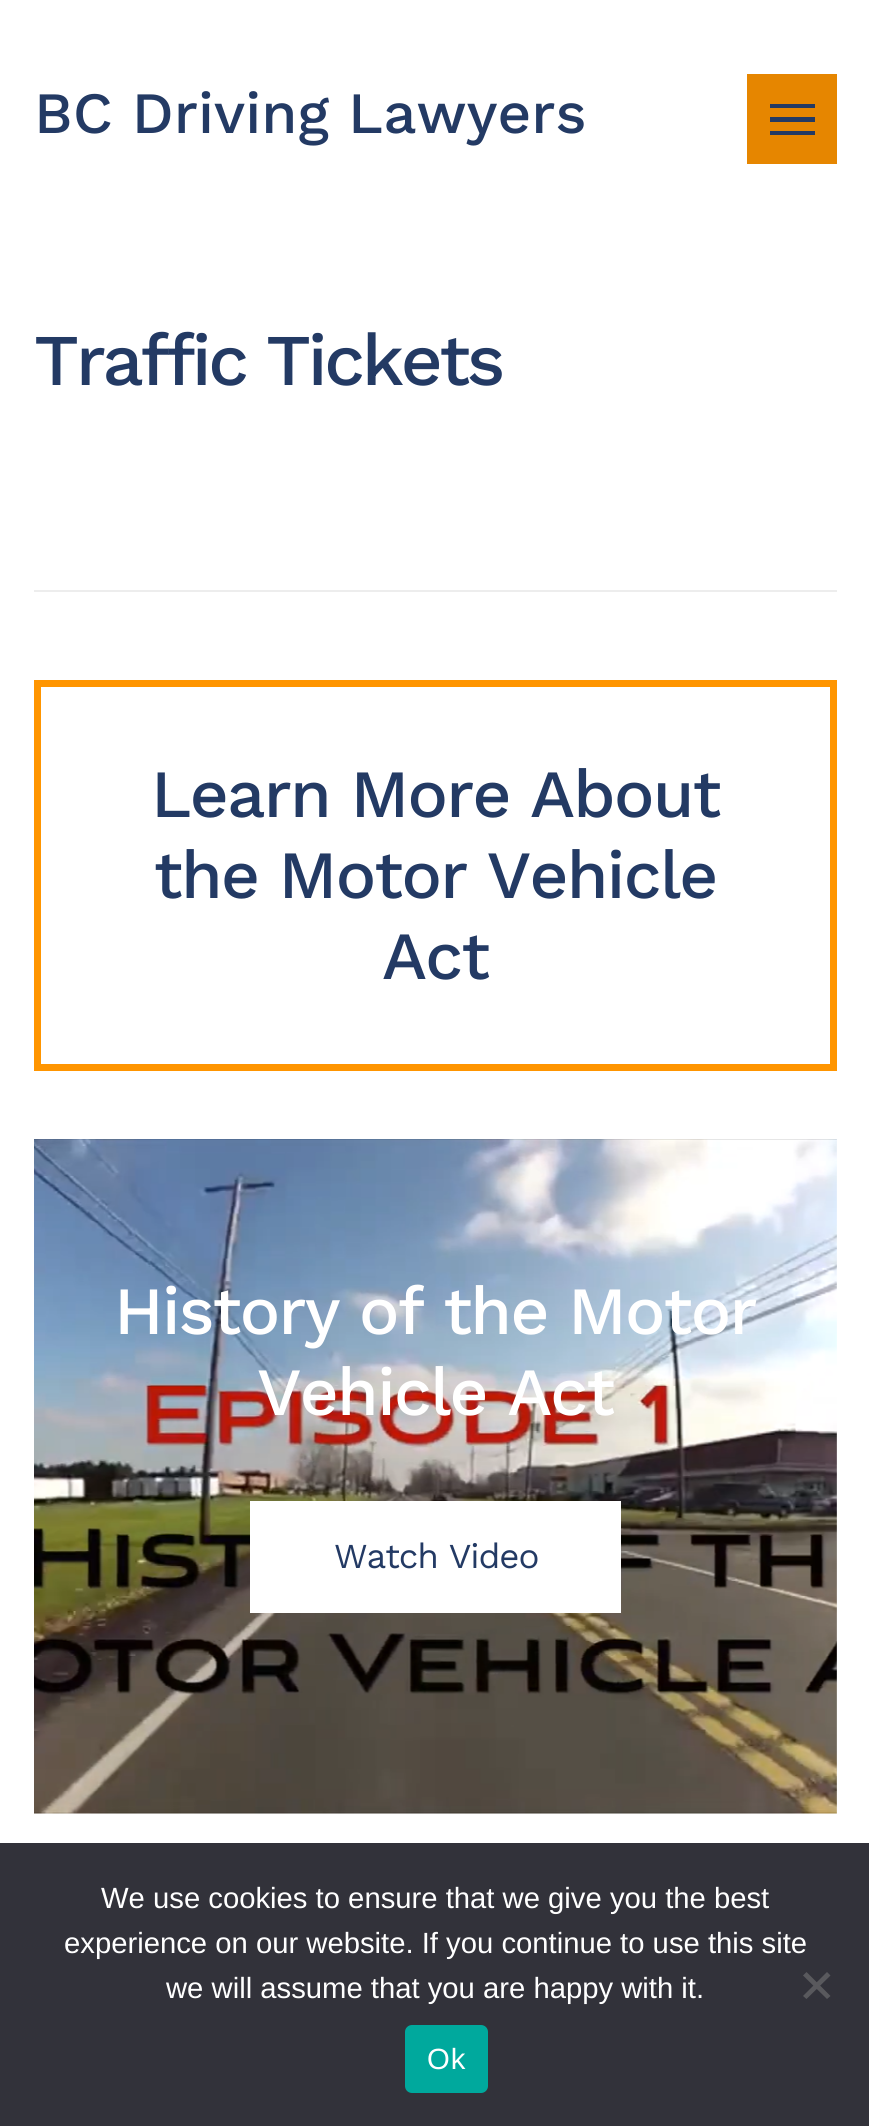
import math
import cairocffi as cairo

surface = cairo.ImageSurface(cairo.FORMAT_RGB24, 869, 2126)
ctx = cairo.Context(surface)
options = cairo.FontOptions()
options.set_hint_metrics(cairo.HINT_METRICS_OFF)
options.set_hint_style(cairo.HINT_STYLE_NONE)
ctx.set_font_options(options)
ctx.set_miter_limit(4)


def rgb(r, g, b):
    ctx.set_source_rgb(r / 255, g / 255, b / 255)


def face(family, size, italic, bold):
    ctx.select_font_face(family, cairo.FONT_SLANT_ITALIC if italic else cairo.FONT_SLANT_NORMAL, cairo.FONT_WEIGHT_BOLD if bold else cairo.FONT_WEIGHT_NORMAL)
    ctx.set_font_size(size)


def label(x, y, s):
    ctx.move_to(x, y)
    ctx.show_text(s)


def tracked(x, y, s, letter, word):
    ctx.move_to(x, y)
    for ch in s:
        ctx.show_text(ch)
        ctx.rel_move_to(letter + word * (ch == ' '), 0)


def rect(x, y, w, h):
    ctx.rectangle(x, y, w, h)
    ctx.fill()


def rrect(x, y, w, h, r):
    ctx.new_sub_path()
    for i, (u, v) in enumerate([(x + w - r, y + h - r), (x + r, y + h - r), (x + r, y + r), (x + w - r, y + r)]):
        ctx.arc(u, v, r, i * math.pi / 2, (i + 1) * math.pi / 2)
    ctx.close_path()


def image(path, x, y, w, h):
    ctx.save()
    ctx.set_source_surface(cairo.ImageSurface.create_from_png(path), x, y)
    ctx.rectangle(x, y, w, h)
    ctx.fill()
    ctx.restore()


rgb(255, 255, 255)
ctx.paint()
face('Work Sans Medium', 58.5, 0, 0)
rgb(35, 58, 100)
label(34, 133, 'BC Driving Lawyers')
rgb(230, 134, 0)
rect(747, 74, 90, 90)
rgb(35, 58, 100)
rect(770, 104, 45, 4)
rect(770, 117, 45, 5)
rect(770, 131, 45, 4)
face('Work Sans Medium', 72.75, 0, 0)
tracked(34, 385, 'Traffic Tickets', -3.4, 0)
rgb(237, 237, 237)
rect(34, 590, 803, 2)
ctx.rectangle(37.5, 683.5, 796, 384)
rgb(255, 149, 0)
ctx.set_line_width(7)
ctx.stroke()
face('Work Sans Medium', 67.5, 0, 0)
rgb(35, 58, 100)
tracked(151, 817, 'Learn More About', -1.7, 0)
tracked(154, 898, 'the Motor Vehicle', -1.7, 0)
tracked(382, 979, 'Act', -1.7, 0)
image('image0.png', 34, 1139, 803, 675)
rgb(255, 255, 255)
tracked(114, 1334, 'History of the Motor', -1.7, 0)
tracked(257, 1415, 'Vehicle Act', -1.7, 0)
rect(250, 1501, 371, 112)
face('Work Sans', 35, 0, 0)
rgb(35, 58, 100)
tracked(334, 1568, 'Watch Video', -1.1, 0)
rgb(50, 50, 58)
rect(0, 1843, 869, 283)
face('Liberation Sans', 29.25, 0, 0)
rgb(255, 255, 255)
label(101, 1908, 'We use cookies to ensure that we give you the best')
label(64, 1953, 'experience on our website. If you continue to use this site')
label(166, 1998, 'we will assume that you are happy with it.')
rgb(89, 89, 93)
ctx.new_path()
ctx.move_to(827, 1972)
ctx.line_to(830.5, 1975.5)
ctx.line_to(806.5, 1999)
ctx.line_to(803, 1996)
ctx.close_path()
ctx.fill()
ctx.new_path()
ctx.move_to(803, 1975.5)
ctx.line_to(806.5, 1972)
ctx.line_to(830.5, 1996)
ctx.line_to(827, 1999)
ctx.close_path()
ctx.fill()
rgb(0, 169, 157)
rrect(405, 2025, 83, 68, 7)
ctx.fill()
rgb(255, 255, 255)
tracked(427, 2069, 'Ok', 1, 0)
surface.write_to_png('render.png')
